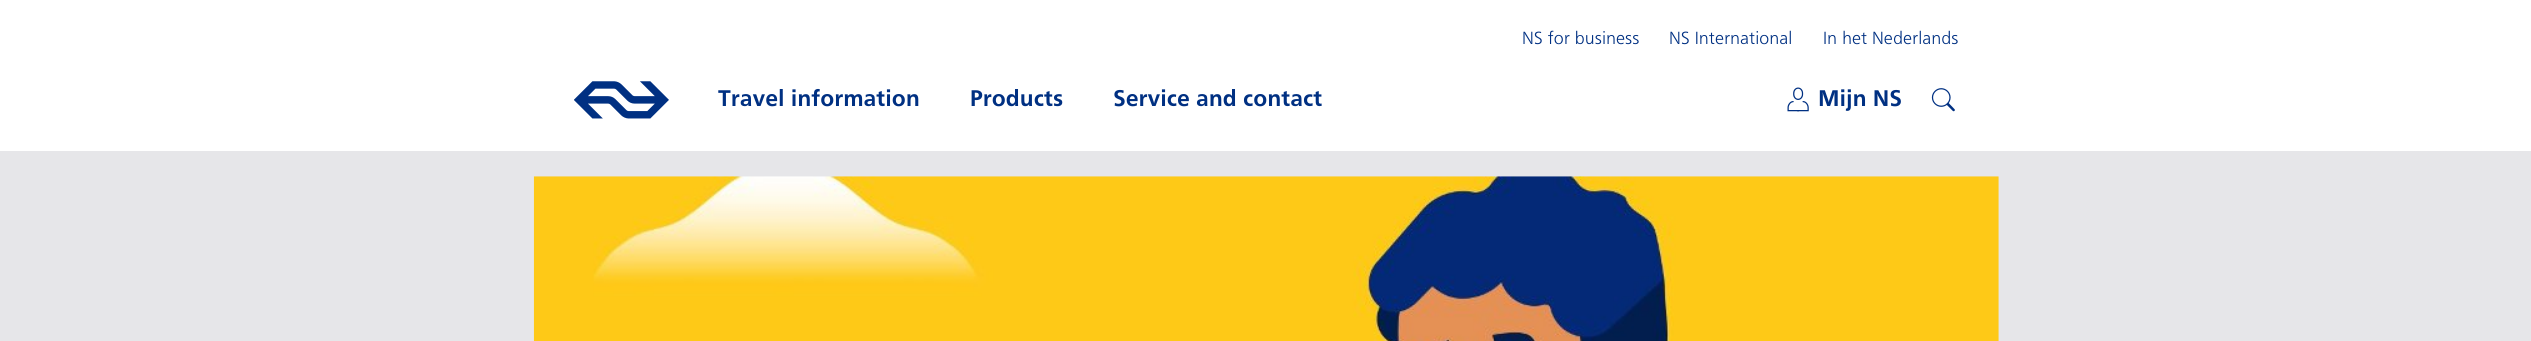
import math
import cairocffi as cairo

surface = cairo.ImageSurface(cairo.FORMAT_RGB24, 2531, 341)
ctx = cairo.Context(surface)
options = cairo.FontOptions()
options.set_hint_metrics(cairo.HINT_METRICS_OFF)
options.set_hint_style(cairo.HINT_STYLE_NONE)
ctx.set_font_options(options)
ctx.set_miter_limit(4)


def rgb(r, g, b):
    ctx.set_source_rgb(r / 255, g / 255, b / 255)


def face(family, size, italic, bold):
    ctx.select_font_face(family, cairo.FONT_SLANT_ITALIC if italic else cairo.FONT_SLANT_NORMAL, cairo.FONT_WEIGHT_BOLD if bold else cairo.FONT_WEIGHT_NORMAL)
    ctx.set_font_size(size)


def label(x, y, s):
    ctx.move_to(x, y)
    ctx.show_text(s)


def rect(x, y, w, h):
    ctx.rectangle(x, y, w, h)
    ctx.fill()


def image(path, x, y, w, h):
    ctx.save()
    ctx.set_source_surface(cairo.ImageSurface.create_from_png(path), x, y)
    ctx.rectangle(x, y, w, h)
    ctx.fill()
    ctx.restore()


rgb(255, 255, 255)
ctx.paint()
image('image0.png', 574, 81, 95, 38)
face('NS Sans', 17.5, 0, 0)
rgb(0, 48, 130)
label(1522, 44, 'NS for business')
label(1669, 44, 'NS International')
label(1823, 44, 'In het Nederlands')
face('NS Sans', 22.5, 0, 1)
label(718, 106, 'Travel information')
label(970, 106, 'Products')
label(1113, 106, 'Service and contact')
image('image1.png', 1787, 87, 22, 25)
label(1818, 106, 'Mijn NS')
image('image2.png', 1931, 88, 24, 24)
rgb(230, 230, 233)
rect(0, 151, 2531, 190)
image('image3.png', 533, 176, 1466, 165)
surface.write_to_png('render.png')
